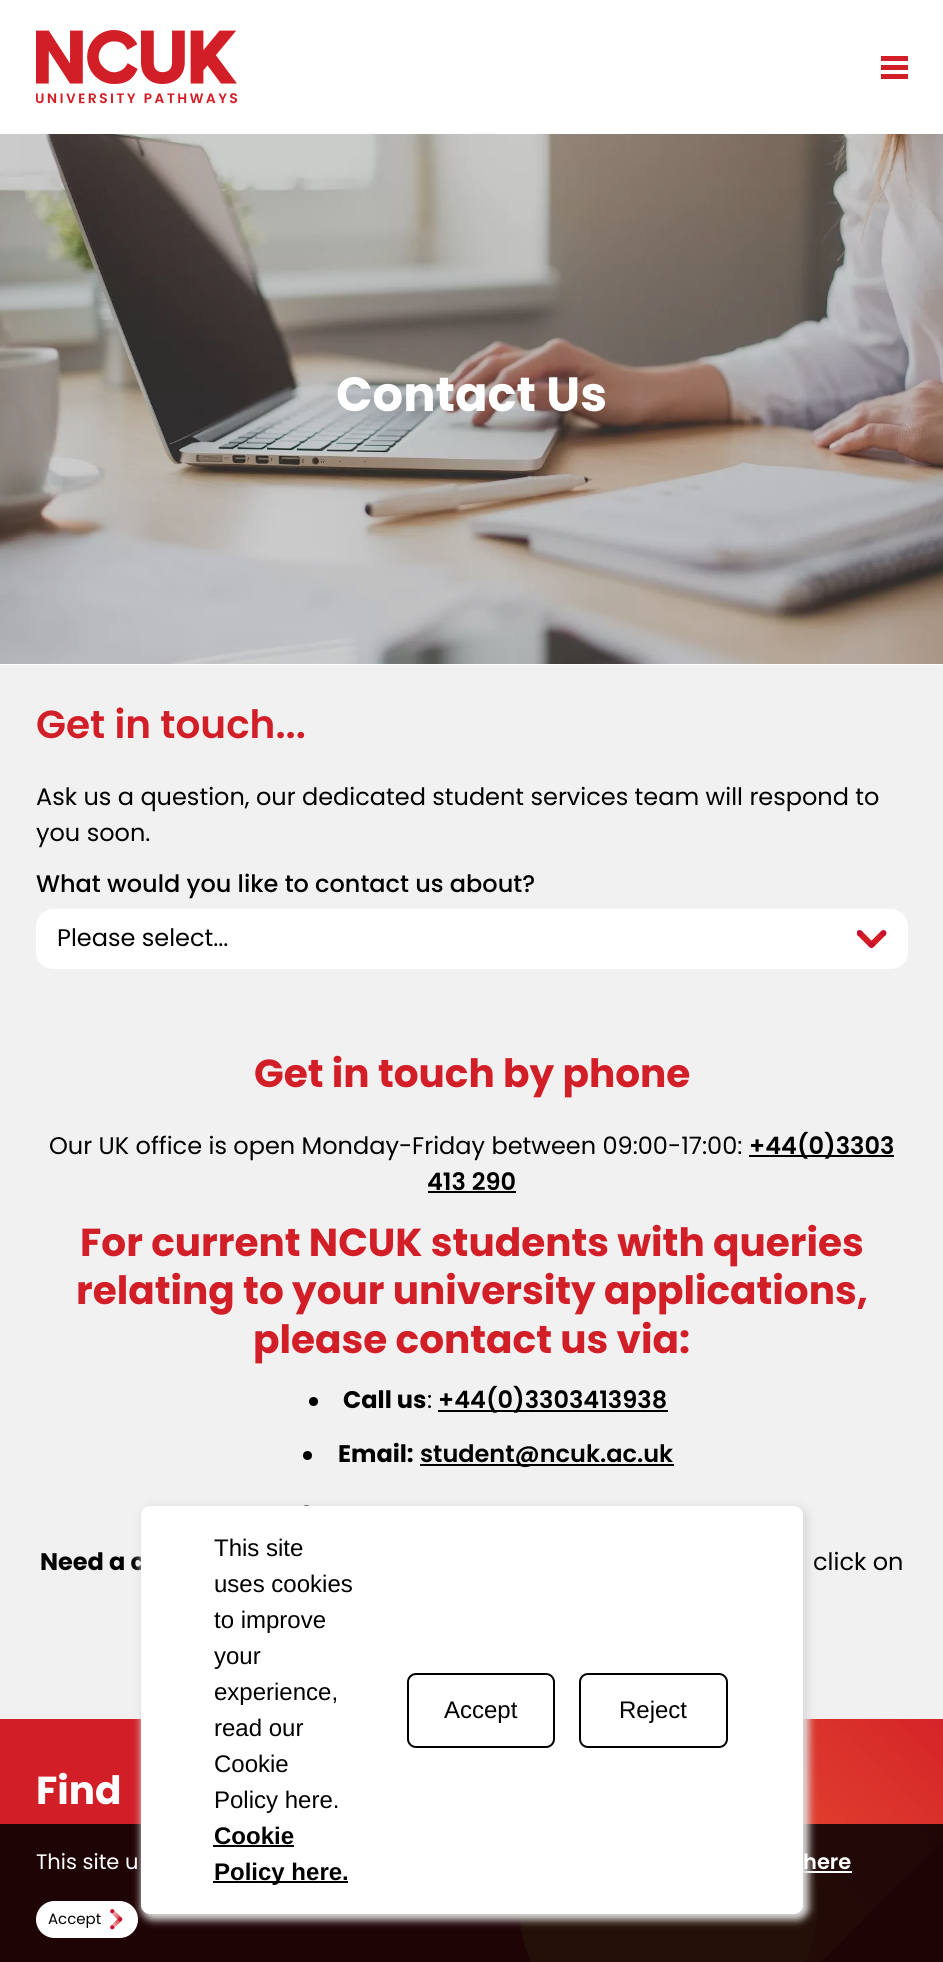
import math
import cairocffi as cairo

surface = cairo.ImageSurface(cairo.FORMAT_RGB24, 943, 1962)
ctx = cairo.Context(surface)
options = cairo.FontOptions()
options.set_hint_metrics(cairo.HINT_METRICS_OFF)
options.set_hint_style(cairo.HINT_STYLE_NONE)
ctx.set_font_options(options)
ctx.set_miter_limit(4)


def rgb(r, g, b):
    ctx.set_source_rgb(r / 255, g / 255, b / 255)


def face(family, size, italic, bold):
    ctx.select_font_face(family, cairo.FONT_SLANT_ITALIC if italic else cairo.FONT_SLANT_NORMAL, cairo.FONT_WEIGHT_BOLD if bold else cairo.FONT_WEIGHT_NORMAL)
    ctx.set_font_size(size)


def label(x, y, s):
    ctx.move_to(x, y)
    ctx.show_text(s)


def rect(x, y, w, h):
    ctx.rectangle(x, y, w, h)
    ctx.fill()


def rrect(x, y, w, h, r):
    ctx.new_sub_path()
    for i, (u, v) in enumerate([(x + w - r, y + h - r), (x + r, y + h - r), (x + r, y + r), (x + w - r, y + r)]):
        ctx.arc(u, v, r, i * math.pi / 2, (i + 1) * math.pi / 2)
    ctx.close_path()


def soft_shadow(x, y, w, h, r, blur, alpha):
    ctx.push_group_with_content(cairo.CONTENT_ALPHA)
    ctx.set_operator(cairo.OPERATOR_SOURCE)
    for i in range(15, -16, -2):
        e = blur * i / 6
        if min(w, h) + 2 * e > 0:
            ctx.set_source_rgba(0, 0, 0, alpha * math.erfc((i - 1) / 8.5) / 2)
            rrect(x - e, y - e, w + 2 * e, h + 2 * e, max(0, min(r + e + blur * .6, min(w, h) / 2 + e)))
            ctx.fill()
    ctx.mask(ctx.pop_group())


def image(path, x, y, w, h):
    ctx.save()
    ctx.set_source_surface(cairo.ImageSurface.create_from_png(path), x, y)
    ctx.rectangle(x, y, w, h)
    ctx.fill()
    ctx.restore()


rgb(255, 255, 255)
ctx.paint()
image('image0.png', 36, 30, 201, 74)
rgb(210, 30, 39)
rect(881, 56, 27, 5)
rect(881, 65, 27, 5)
rect(881, 74, 27, 5)
image('image1.png', 0, 134, 943, 530)
face('Poppins', 48, 0, 1)
rgb(255, 255, 255)
label(336, 411, 'Contact Us')
rgb(241, 241, 242)
rect(0, 665, 943, 1054)
face('Poppins SemiBold', 39, 0, 0)
rgb(210, 30, 39)
label(36, 738, 'Get in touch...')
face('Poppins', 24, 0, 0)
rgb(0, 0, 0)
label(36, 805, 'Ask us a question, our dedicated student services team will respond to')
label(36, 841, 'you soon.')
face('Poppins Medium', 24, 0, 0)
label(36, 892, 'What would you like to contact us about?')
rgb(255, 255, 255)
rrect(36, 909, 872, 60, 18)
ctx.fill()
image('image2.png', 857, 930, 30, 18)
rrect(37.5, 910.5, 869, 57, 16.5)
ctx.set_line_width(3)
ctx.stroke()
face('Poppins', 24, 0, 0)
rgb(0, 0, 0)
label(57, 946, 'Please select...')
face('Poppins', 39, 0, 1)
rgb(210, 30, 39)
label(254, 1087, 'Get in touch by phone')
face('Poppins', 24, 0, 0)
rgb(0, 0, 0)
label(49, 1154, 'Our UK office is open Monday-Friday between 09:00-17:00:')
rect(749, 1155, 145, 2)
face('Poppins SemiBold', 24, 0, 0)
label(749, 1154, '+44(0)3303')
label(427, 1190, '413 290')
rect(428, 1191, 88, 2)
face('Poppins', 39, 0, 1)
rgb(210, 30, 39)
label(80, 1256, 'For current NCUK students with queries')
label(76, 1304, 'relating to your university applications,')
label(253, 1353, 'please contact us via:')
rgb(0, 0, 0)
ctx.new_path()
ctx.arc(313.5, 1401.5, 4.5, 0, 2 * math.pi)
ctx.fill()
face('Poppins', 24, 0, 1)
label(343, 1408, 'Call us')
face('Poppins', 24, 0, 0)
label(427, 1408, ':')
rect(438, 1410, 230, 2)
face('Poppins SemiBold', 24, 0, 0)
label(438, 1408, '+44(0)3303413938')
ctx.new_path()
ctx.arc(307.5, 1455.5, 4.5, 0, 2 * math.pi)
ctx.fill()
face('Poppins', 24, 0, 1)
label(338, 1462, 'Email:')
rect(420, 1464, 254, 2)
face('Poppins SemiBold', 24, 0, 0)
label(420, 1462, 'student@ncuk.ac.uk')
ctx.new_path()
ctx.arc(306.5, 1509.5, 4.5, 0, 2 * math.pi)
ctx.fill()
face('Poppins', 24, 0, 1)
label(40, 1570, 'Need a c')
face('Poppins', 24, 0, 0)
label(813, 1570, 'click on')
rgb(210, 30, 39)
rect(0, 1719, 943, 243)
face('Poppins', 39, 0, 1)
rgb(255, 255, 255)
label(36, 1804, 'Find')
image('image3.png', 519, 1718, 424, 244)
ctx.set_source_rgba(0, 0, 0, 0.85)
rect(0, 1824, 943, 138)
rgb(255, 255, 255)
rect(803, 1871, 49, 2)
rrect(36, 1901, 102, 37, 18.5)
ctx.fill()
rgb(221, 221, 221)
soft_shadow(141, 1506, 668, 414, 12, 4, 1)
rgb(255, 255, 255)
rrect(141, 1506, 662, 408, 9)
ctx.fill()
face('Liberation Sans', 24, 0, 0)
rgb(0, 0, 0)
label(214, 1556, 'This site')
label(214, 1592, 'uses cookies')
label(214, 1628, 'to improve')
label(214, 1664, 'your')
label(214, 1700, 'experience,')
label(214, 1736, 'read our')
label(214, 1772, 'Cookie')
label(214, 1808, 'Policy here.')
face('Liberation Sans', 24, 0, 1)
label(214, 1844, 'Cookie')
rect(213, 1845, 81, 2)
rect(213, 1881, 135, 2)
label(214, 1880, 'Policy here.')
rrect(408, 1674, 146, 73, 8)
ctx.set_line_width(2)
ctx.stroke()
face('Liberation Sans', 24, 0, 0)
label(444, 1718, 'Accept')
rrect(580, 1674, 147, 73, 8)
ctx.stroke()
label(619, 1718, 'Reject')
face('Poppins', 21, 0, 0)
rgb(255, 255, 255)
label(36, 1869, 'This site u')
face('Poppins SemiBold', 21, 0, 0)
label(803, 1869, 'here')
face('Poppins', 15, 0, 0)
rgb(0, 0, 0)
label(48, 1924, 'Accept')
image('image4.png', 110, 1909, 13, 21)
surface.write_to_png('render.png')
